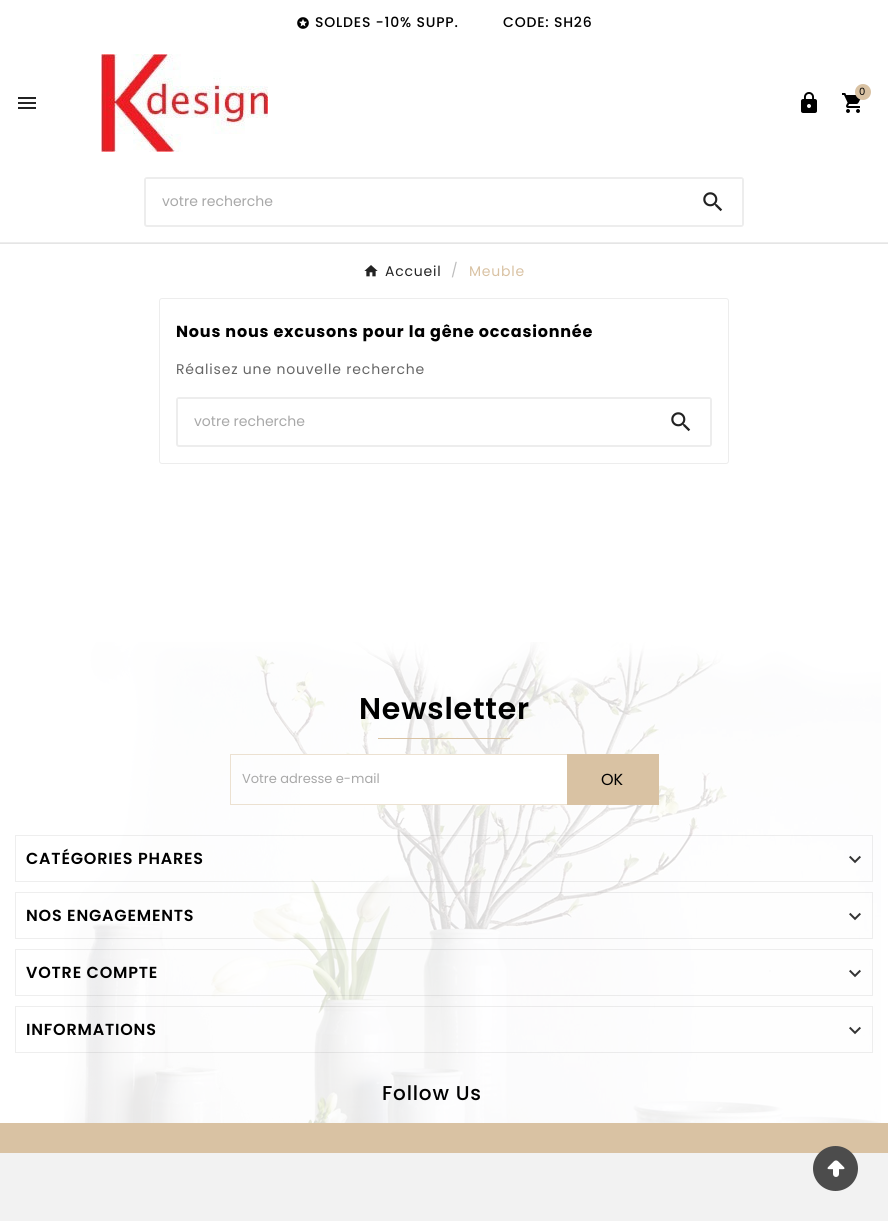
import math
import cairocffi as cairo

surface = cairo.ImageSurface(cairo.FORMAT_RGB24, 888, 1221)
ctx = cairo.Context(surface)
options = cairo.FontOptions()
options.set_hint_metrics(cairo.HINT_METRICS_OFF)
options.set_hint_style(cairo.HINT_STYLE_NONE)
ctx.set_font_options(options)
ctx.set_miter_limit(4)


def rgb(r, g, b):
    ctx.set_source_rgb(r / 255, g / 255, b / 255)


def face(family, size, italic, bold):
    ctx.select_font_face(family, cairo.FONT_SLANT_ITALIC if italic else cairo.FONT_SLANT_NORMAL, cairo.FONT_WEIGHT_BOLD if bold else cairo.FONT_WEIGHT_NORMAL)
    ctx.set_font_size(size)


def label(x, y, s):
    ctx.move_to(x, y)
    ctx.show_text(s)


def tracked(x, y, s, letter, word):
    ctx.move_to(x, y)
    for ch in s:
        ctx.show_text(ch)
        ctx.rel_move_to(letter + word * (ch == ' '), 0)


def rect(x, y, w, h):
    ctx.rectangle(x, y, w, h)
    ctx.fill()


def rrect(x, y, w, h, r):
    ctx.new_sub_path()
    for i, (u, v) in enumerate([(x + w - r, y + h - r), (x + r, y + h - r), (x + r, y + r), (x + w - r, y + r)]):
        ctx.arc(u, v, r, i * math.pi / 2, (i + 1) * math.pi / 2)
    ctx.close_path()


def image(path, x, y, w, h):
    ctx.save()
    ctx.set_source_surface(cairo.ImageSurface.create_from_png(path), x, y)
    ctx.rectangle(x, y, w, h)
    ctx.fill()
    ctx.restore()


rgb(242, 242, 242)
ctx.paint()
rgb(255, 255, 255)
rect(0, 0, 888, 1123)
rgb(229, 229, 229)
rect(0, 243, 888, 1)
rgb(237, 237, 237)
rect(0, 242, 888, 1)
image('image0.png', 297, 17, 12, 12)
face('Poppins Medium', 14, 0, 0)
rgb(0, 0, 0)
tracked(315, 27, 'SOLDES -10% SUPP.          CODE: SH26', 0.8, 0)
image('image1.png', 101, 54, 167, 98)
image('image2.png', 842, 93, 19, 20)
rgb(217, 194, 163)
ctx.arc(863, 92, 8, 0, 2 * math.pi)
ctx.fill()
face('Poppins', 10, 0, 0)
rgb(0, 0, 0)
tracked(859, 95, '0', 0.8, 0)
image('image3.png', 801, 92, 16, 21)
image('image4.png', 18, 97, 18, 12)
rrect(145, 178, 598, 48, 2)
rgb(237, 237, 237)
ctx.stroke()
rgb(255, 255, 255)
rect(146, 179, 1, 1)
face('Poppins', 14, 0, 0)
rgb(168, 168, 168)
label(162, 206, 'votre recherche')
rgb(255, 255, 255)
rect(741, 179, 1, 46)
image('image5.png', 703, 192, 20, 20)
image('image6.png', 364, 265, 14, 12)
rgb(35, 35, 35)
tracked(385, 276, 'Accueil', 0.8, 0)
rgb(189, 189, 189)
tracked(451, 275, '/', 0.8, 0)
rgb(217, 194, 163)
tracked(469, 276, 'Meuble', 0.8, 0)
rrect(159.5, 298.5, 569, 165, 2.5)
rgb(237, 237, 237)
ctx.set_line_width(1)
ctx.stroke()
face('Poppins', 16, 0, 1)
rgb(0, 0, 0)
tracked(176, 337, 'Nous nous excusons pour la gêne occasionnée', 0.8, 0)
face('Poppins', 14, 0, 0)
rgb(102, 102, 102)
tracked(176, 374, 'Réalisez une nouvelle recherche', 0.8, 0)
rrect(177, 398, 534, 48, 2)
rgb(237, 237, 237)
ctx.set_line_width(2)
ctx.stroke()
rgb(255, 255, 255)
rect(178, 399, 1, 1)
rgb(168, 168, 168)
label(194, 426, 'votre recherche')
rgb(255, 255, 255)
rect(709, 399, 1, 46)
image('image5.png', 671, 412, 20, 20)
image('image7.png', 64, 642, 817, 481)
face('Poppins SemiBold', 30, 0, 0)
rgb(0, 0, 0)
tracked(359, 719, 'Newsletter', 0.8, 0)
rgb(217, 194, 163)
rect(378, 738, 132, 1)
rgb(255, 255, 255)
rect(300, 755, 267, 49)
ctx.rectangle(230.5, 754.5, 428, 50)
rgb(236, 225, 209)
ctx.set_line_width(1)
ctx.stroke()
face('Poppins', 13, 0, 0)
rgb(168, 168, 168)
label(242, 783, 'Votre adresse e-mail')
rgb(217, 194, 163)
rect(567, 754, 92, 51)
face('Poppins', 16, 0, 0)
rgb(0, 0, 0)
label(601, 785, 'OK')
ctx.rectangle(15.5, 835.5, 857, 46)
ctx.set_source_rgba(0, 0, 0, 0.07)
ctx.stroke()
face('Poppins SemiBold', 16, 0, 0)
rgb(0, 0, 0)
tracked(26, 864, 'CATÉGORIES PHARES', 0.8, 0)
image('image8.png', 849, 855, 12, 9)
ctx.rectangle(15.5, 892.5, 857, 46)
ctx.set_source_rgba(0, 0, 0, 0.07)
ctx.stroke()
rgb(0, 0, 0)
tracked(26, 921, 'NOS ENGAGEMENTS', 0.8, 0)
image('image9.png', 849, 912, 12, 9)
ctx.rectangle(15.5, 949.5, 857, 46)
ctx.set_source_rgba(0, 0, 0, 0.07)
ctx.stroke()
rgb(0, 0, 0)
tracked(26, 978, 'VOTRE COMPTE', 0.8, 0)
image('image9.png', 849, 969, 12, 9)
ctx.rectangle(15.5, 1006.5, 857, 46)
ctx.set_source_rgba(0, 0, 0, 0.07)
ctx.stroke()
rgb(0, 0, 0)
tracked(26, 1035, 'INFORMATIONS', 0.8, 0)
image('image9.png', 849, 1026, 12, 9)
face('Poppins Medium', 20, 0, 0)
tracked(382, 1100, 'Follow Us', 0.8, 0)
rgb(217, 194, 163)
rect(0, 1123, 888, 30)
rgb(76, 76, 76)
ctx.new_path()
ctx.arc(835.5, 1168.5, 22.5, 0, 2 * math.pi)
ctx.fill()
image('image10.png', 827, 1160, 18, 17)
surface.write_to_png('render.png')
